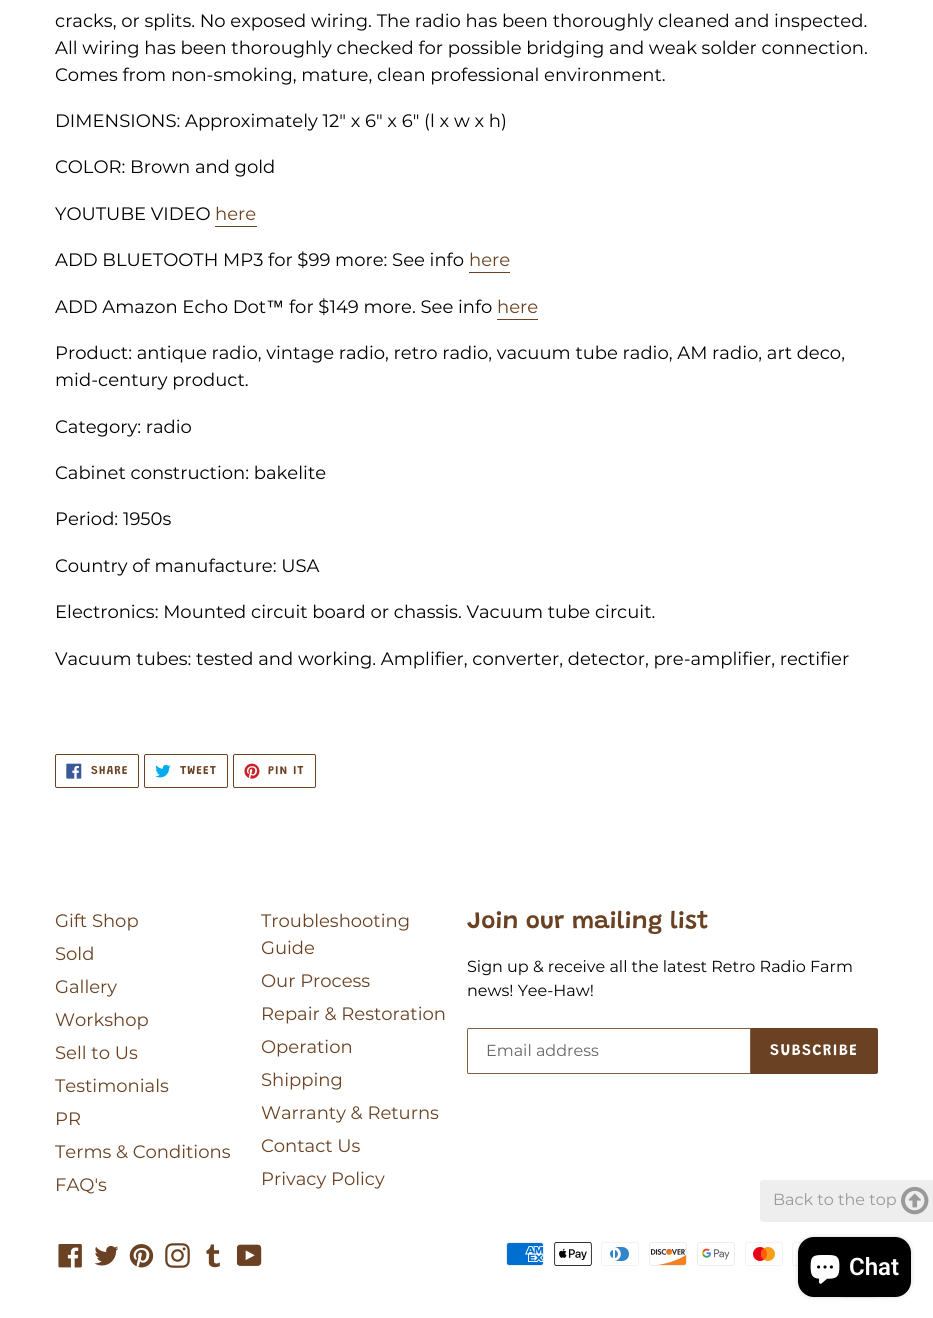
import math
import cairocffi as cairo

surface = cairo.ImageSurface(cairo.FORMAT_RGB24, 933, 1318)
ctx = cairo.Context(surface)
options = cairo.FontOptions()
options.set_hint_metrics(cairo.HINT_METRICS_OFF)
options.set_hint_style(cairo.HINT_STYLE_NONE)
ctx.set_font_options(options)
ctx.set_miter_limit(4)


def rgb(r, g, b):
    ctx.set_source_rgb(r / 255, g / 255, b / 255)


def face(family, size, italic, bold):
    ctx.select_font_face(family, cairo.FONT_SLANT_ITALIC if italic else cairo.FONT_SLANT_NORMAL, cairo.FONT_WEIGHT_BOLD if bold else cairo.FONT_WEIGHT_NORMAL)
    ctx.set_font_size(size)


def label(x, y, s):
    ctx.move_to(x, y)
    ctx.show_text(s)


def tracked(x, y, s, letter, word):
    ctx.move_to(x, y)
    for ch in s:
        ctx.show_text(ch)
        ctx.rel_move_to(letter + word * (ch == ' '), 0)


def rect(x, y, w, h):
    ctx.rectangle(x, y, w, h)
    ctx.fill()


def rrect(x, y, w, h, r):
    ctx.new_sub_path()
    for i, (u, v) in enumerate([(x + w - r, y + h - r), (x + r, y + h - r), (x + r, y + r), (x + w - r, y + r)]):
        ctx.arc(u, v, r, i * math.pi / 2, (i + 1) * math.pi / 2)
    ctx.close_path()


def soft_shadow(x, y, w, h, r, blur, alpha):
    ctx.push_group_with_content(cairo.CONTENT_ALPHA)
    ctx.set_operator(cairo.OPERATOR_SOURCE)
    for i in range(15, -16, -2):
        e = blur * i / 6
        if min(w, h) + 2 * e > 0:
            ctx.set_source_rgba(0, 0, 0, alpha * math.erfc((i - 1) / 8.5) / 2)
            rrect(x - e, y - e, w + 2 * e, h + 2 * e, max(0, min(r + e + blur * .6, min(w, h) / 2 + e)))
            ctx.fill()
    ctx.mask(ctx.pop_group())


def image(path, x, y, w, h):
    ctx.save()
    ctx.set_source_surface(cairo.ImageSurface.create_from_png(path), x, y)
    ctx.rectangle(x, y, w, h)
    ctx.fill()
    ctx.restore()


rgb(255, 255, 255)
ctx.paint()
face('Montserrat', 18, 0, 0)
rgb(0, 0, 0)
label(55, 27, 'cracks, or splits. No exposed wiring. The radio has been thoroughly cleaned and inspected.')
label(55, 54, 'All wiring has been thoroughly checked for possible bridging and weak solder connection.')
label(55, 81, 'Comes from non-smoking, mature, clean professional environment.')
label(55, 127, 'DIMENSIONS: Approximately 12" x 6" x 6" (l x w x h)')
label(55, 173, 'COLOR: Brown and gold')
label(55, 220, 'YOUTUBE VIDEO')
rgb(106, 66, 35)
label(215, 220, 'here')
rect(215, 226, 42, 1)
rgb(0, 0, 0)
label(55, 266, 'ADD BLUETOOTH MP3 for $99 more: See info')
rgb(106, 66, 35)
label(469, 266, 'here')
rect(469, 272, 41, 1)
rgb(0, 0, 0)
label(55, 313, 'ADD Amazon Echo Dot')
face('Liberation Sans', 18, 0, 0)
label(266, 313, '™')
face('Montserrat', 18, 0, 0)
label(289, 313, 'for $149 more. See info')
rgb(106, 66, 35)
label(497, 313, 'here')
rect(497, 319, 41, 1)
rgb(0, 0, 0)
label(55, 359, 'Product: antique radio, vintage radio, retro radio, vacuum tube radio, AM radio, art deco,')
label(55, 386, 'mid-century product.')
label(55, 433, 'Category: radio')
label(55, 479, 'Cabinet construction: bakelite')
label(55, 525, 'Period: 1950s')
label(55, 572, 'Country of manufacture: USA')
label(55, 618, 'Electronics: Mounted circuit board or chassis. Vacuum tube circuit.')
label(55, 665, 'Vacuum tubes: tested and working. Amplifier, converter, detector, pre-amplifier, rectifier')
rrect(55.5, 754.5, 83, 33, 1.5)
rgb(106, 66, 35)
ctx.set_line_width(1)
ctx.stroke()
image('image0.png', 66, 763, 16, 16)
face('Grandstander SemiBold', 12, 0, 0)
tracked(91, 774, 'SHARE', 1, 0)
rrect(144.5, 754.5, 83, 33, 1.5)
ctx.stroke()
image('image1.png', 155, 764, 16, 14)
tracked(180, 774, 'TWEET', 1, 0)
rrect(233.5, 754.5, 82, 33, 1.5)
ctx.stroke()
image('image2.png', 244, 763, 16, 16)
tracked(268, 774, 'PIN IT', 1, 0)
face('Montserrat', 18, 0, 0)
label(55, 927, 'Gift Shop')
label(55, 960, 'Sold')
label(55, 993, 'Gallery')
label(55, 1026, 'Workshop')
label(55, 1059, 'Sell to Us')
label(55, 1092, 'Testimonials')
label(55, 1125, 'PR')
label(55, 1158, 'Terms & Conditions')
label(55, 1191, 'FAQ\'s')
label(261, 927, 'Troubleshooting')
label(261, 954, 'Guide')
label(261, 987, 'Our Process')
label(261, 1020, 'Repair & Restoration')
label(261, 1053, 'Operation')
label(261, 1086, 'Shipping')
label(261, 1119, 'Warranty & Returns')
label(261, 1152, 'Contact Us')
label(261, 1185, 'Privacy Policy')
face('Grandstander SemiBold', 24, 0, 0)
label(467, 928, 'Join our mailing list')
face('Montserrat', 16, 0, 0)
rgb(0, 0, 0)
label(467, 972, 'Sign up & receive all the latest Retro Radio Farm')
label(467, 996, 'news! Yee-Haw!')
ctx.new_path()
ctx.move_to(469, 1028.5)
ctx.line_to(750.5, 1028.5)
ctx.line_to(750.5, 1073.5)
ctx.line_to(469, 1073.5)
ctx.curve_to(468, 1073.5, 467.5, 1073, 467.5, 1072)
ctx.line_to(467.5, 1030)
ctx.curve_to(467.5, 1029, 468, 1028.5, 469, 1028.5)
ctx.close_path()
rgb(128, 94, 68)
ctx.stroke()
rgb(102, 102, 102)
label(486, 1056, 'Email address')
rgb(106, 66, 35)
ctx.new_path()
ctx.move_to(751, 1028)
ctx.line_to(876, 1028)
ctx.curve_to(877, 1028, 878, 1029, 878, 1030)
ctx.line_to(878, 1072)
ctx.curve_to(878, 1073, 877, 1074, 876, 1074)
ctx.line_to(751, 1074)
ctx.close_path()
ctx.fill()
face('Grandstander SemiBold', 16, 0, 0)
rgb(255, 255, 255)
tracked(770, 1055, 'SUBSCRIBE', 1.25, 0)
image('image3.png', 58, 1244, 24, 24)
image('image4.png', 94, 1246, 25, 20)
image('image5.png', 129, 1244, 25, 24)
image('image6.png', 165, 1243, 25, 25)
image('image7.png', 206, 1244, 14, 24)
image('image8.png', 237, 1244, 25, 22)
image('image9.png', 506, 1242, 38, 24)
image('image10.png', 554, 1242, 38, 24)
image('image11.png', 601, 1242, 38, 24)
image('image12.png', 649, 1242, 38, 24)
image('image13.png', 697, 1242, 38, 24)
image('image14.png', 745, 1242, 38, 24)
image('image15.png', 792, 1242, 11, 24)
image('image16.png', 841, 1297, 36, 1)
rgb(238, 238, 238)
ctx.new_path()
ctx.move_to(763, 1180)
ctx.line_to(933, 1180)
ctx.line_to(933, 1222)
ctx.line_to(763, 1222)
ctx.curve_to(761.5, 1222, 760, 1220.5, 760, 1219)
ctx.line_to(760, 1183)
ctx.curve_to(760, 1181.5, 761.5, 1180, 763, 1180)
ctx.close_path()
ctx.fill()
face('Montserrat', 16, 0, 0)
rgb(153, 153, 153)
label(773, 1205, 'Back to the top')
image('image17.png', 901, 1186, 28, 29)
rgb(0, 0, 0)
soft_shadow(798, 1237, 113, 60, 16, 2.5, 0.15)
rgb(0, 0, 0)
rrect(798, 1237, 113, 60, 16)
ctx.fill()
image('image18.png', 810, 1255, 30, 29)
face('Roboto SemiBold', 24, 0, 0)
rgb(255, 255, 255)
label(849, 1275, 'Chat')
surface.write_to_png('render.png')
